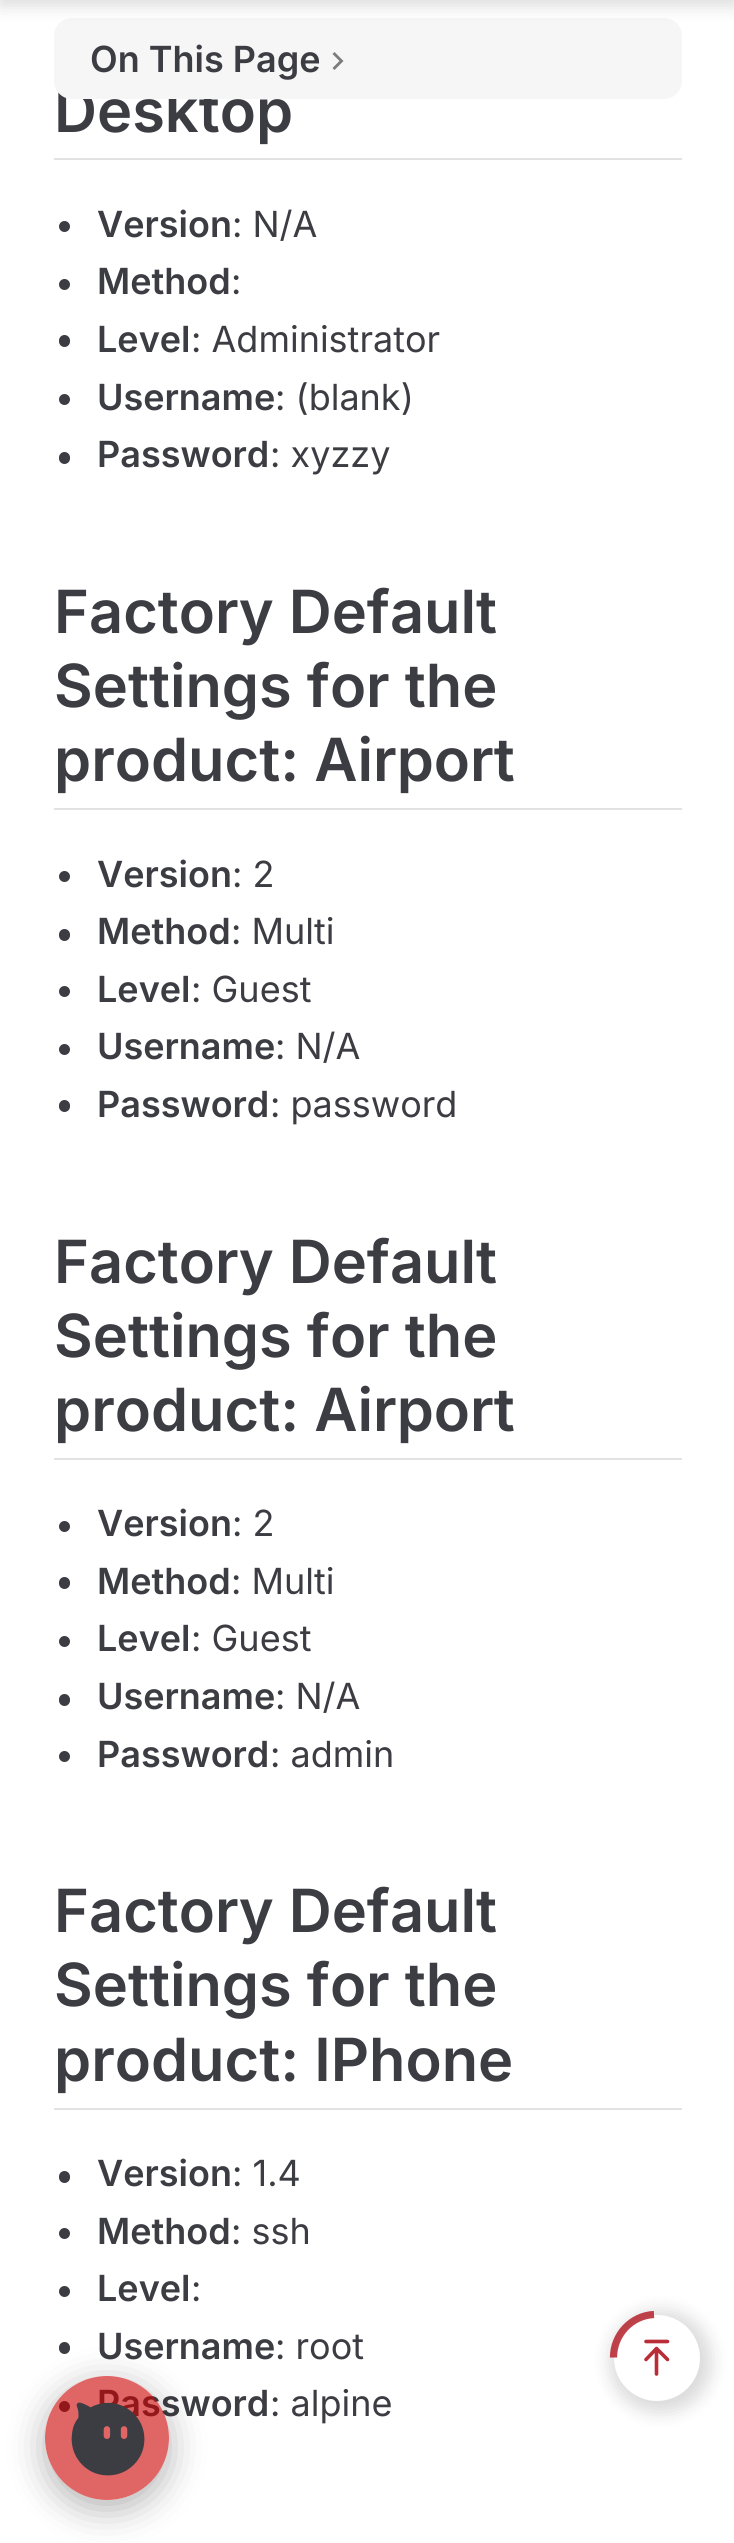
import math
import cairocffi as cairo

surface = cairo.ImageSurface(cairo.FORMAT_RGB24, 734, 2543)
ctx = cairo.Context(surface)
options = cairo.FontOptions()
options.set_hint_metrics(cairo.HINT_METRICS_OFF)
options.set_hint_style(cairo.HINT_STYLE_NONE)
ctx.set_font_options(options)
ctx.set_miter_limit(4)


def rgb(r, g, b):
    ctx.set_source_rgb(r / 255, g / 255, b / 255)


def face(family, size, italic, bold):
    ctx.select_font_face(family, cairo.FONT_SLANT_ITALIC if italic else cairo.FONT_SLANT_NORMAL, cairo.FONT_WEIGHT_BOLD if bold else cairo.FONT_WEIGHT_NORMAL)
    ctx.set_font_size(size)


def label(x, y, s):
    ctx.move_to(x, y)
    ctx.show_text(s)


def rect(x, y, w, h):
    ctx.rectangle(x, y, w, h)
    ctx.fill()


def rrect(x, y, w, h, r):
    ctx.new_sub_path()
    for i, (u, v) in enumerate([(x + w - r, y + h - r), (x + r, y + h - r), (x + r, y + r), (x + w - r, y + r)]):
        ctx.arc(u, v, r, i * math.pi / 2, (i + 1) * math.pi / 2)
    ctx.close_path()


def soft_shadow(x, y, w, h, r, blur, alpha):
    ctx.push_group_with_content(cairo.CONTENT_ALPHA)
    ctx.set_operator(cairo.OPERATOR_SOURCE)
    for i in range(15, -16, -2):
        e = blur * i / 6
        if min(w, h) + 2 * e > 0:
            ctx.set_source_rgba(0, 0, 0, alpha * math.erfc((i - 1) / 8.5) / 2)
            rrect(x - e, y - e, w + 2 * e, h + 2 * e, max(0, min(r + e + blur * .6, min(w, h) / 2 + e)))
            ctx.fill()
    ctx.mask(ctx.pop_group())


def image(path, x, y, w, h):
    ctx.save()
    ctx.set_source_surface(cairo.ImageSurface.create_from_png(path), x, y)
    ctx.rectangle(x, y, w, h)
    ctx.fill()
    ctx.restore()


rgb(255, 255, 255)
ctx.paint()
face('Inter SemiBold', 59.5, 0, 0)
rgb(60, 60, 67)
label(54, 132, 'Desktop')
rgb(246, 246, 247)
rrect(54, 18, 628, 81, 18)
ctx.fill()
rgb(0, 0, 0)
soft_shadow(0, -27, 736, 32, 0, 9, 0.15)
face('Inter SemiBold', 36, 0, 0)
rgb(60, 60, 67)
label(90, 72, 'On This Page')
rgb(123, 123, 124)
ctx.new_path()
ctx.move_to(332.5, 54)
ctx.line_to(339.5, 61)
ctx.line_to(332.5, 68)
ctx.line_to(334.5, 70)
ctx.line_to(343.5, 61)
ctx.line_to(334.5, 52)
ctx.close_path()
ctx.fill()
rgb(226, 226, 227)
rect(54, 158, 628, 2)
rgb(60, 60, 67)
ctx.arc(64.5, 226.5, 5.5, 0, 2 * math.pi)
ctx.fill()
label(97, 237, 'Version')
face('Inter', 36, 0, 0)
label(232, 237, ': N/A')
ctx.new_path()
ctx.arc(64.5, 284.5, 5.5, 0, 2 * math.pi)
ctx.fill()
face('Inter SemiBold', 36, 0, 0)
label(97, 294, 'Method')
face('Inter', 36, 0, 0)
label(231, 294, ':')
rrect(59, 335, 11, 12, 5.5)
ctx.fill()
face('Inter SemiBold', 36, 0, 0)
label(97, 352, 'Level')
face('Inter', 36, 0, 0)
label(191, 352, ': Administrator')
ctx.new_path()
ctx.arc(64.5, 399.5, 5.5, 0, 2 * math.pi)
ctx.fill()
face('Inter SemiBold', 36, 0, 0)
label(97, 410, 'Username')
face('Inter', 36, 0, 0)
label(275, 410, ': (blank)')
rrect(59, 452, 11, 12, 5.5)
ctx.fill()
face('Inter SemiBold', 36, 0, 0)
label(97, 467, 'Password')
face('Inter', 36, 0, 0)
label(270, 467, ': xyzzy')
rgb(226, 226, 227)
rect(54, 808, 628, 2)
face('Inter SemiBold', 59.5, 0, 0)
rgb(60, 60, 67)
label(54, 633, 'Factory Default')
label(54, 707, 'Settings for the')
label(54, 781, 'product: Airport')
ctx.new_path()
ctx.arc(64.5, 876.5, 5.5, 0, 2 * math.pi)
ctx.fill()
face('Inter SemiBold', 36, 0, 0)
label(97, 887, 'Version')
face('Inter', 36, 0, 0)
label(232, 887, ': 2')
rrect(59, 929, 11, 12, 5.5)
ctx.fill()
face('Inter SemiBold', 36, 0, 0)
label(97, 944, 'Method')
face('Inter', 36, 0, 0)
label(231, 944, ': Multi')
ctx.new_path()
ctx.arc(64.5, 991.5, 5.5, 0, 2 * math.pi)
ctx.fill()
face('Inter SemiBold', 36, 0, 0)
label(97, 1002, 'Level')
face('Inter', 36, 0, 0)
label(191, 1002, ': Guest')
ctx.new_path()
ctx.arc(64.5, 1049.5, 5.5, 0, 2 * math.pi)
ctx.fill()
face('Inter SemiBold', 36, 0, 0)
label(97, 1059, 'Username')
face('Inter', 36, 0, 0)
label(275, 1059, ': N/A')
rrect(59, 1100, 11, 12, 5.5)
ctx.fill()
face('Inter SemiBold', 36, 0, 0)
label(97, 1117, 'Password')
face('Inter', 36, 0, 0)
label(270, 1117, ': password')
rgb(226, 226, 227)
rect(54, 1458, 628, 2)
face('Inter SemiBold', 59.5, 0, 0)
rgb(60, 60, 67)
label(54, 1283, 'Factory Default')
label(54, 1357, 'Settings for the')
label(54, 1431, 'product: Airport')
ctx.new_path()
ctx.arc(64.5, 1526.5, 5.5, 0, 2 * math.pi)
ctx.fill()
face('Inter SemiBold', 36, 0, 0)
label(97, 1536, 'Version')
face('Inter', 36, 0, 0)
label(232, 1536, ': 2')
rrect(59, 1577, 11, 12, 5.5)
ctx.fill()
face('Inter SemiBold', 36, 0, 0)
label(97, 1594, 'Method')
face('Inter', 36, 0, 0)
label(231, 1594, ': Multi')
ctx.new_path()
ctx.arc(64.5, 1641.5, 5.5, 0, 2 * math.pi)
ctx.fill()
face('Inter SemiBold', 36, 0, 0)
label(97, 1651, 'Level')
face('Inter', 36, 0, 0)
label(191, 1651, ': Guest')
rrect(59, 1694, 11, 12, 5.5)
ctx.fill()
face('Inter SemiBold', 36, 0, 0)
label(97, 1709, 'Username')
face('Inter', 36, 0, 0)
label(275, 1709, ': N/A')
ctx.new_path()
ctx.arc(64.5, 1756.5, 5.5, 0, 2 * math.pi)
ctx.fill()
face('Inter SemiBold', 36, 0, 0)
label(97, 1767, 'Password')
face('Inter', 36, 0, 0)
label(270, 1767, ': admin')
rgb(226, 226, 227)
rect(54, 2108, 628, 2)
face('Inter SemiBold', 59.5, 0, 0)
rgb(60, 60, 67)
label(54, 1932, 'Factory Default')
label(54, 2006, 'Settings for the')
label(54, 2081, 'product: IPhone')
rrect(59, 2171, 11, 12, 5.5)
ctx.fill()
face('Inter SemiBold', 36, 0, 0)
label(97, 2186, 'Version')
face('Inter', 36, 0, 0)
label(232, 2186, ': 1.4')
ctx.new_path()
ctx.arc(64.5, 2233.5, 5.5, 0, 2 * math.pi)
ctx.fill()
face('Inter SemiBold', 36, 0, 0)
label(97, 2244, 'Method')
face('Inter', 36, 0, 0)
label(231, 2244, ': ssh')
ctx.new_path()
ctx.arc(64.5, 2291.5, 5.5, 0, 2 * math.pi)
ctx.fill()
face('Inter SemiBold', 36, 0, 0)
label(97, 2301, 'Level')
face('Inter', 36, 0, 0)
label(191, 2301, ':')
rrect(59, 2342, 11, 12, 5.5)
ctx.fill()
face('Inter SemiBold', 36, 0, 0)
label(97, 2359, 'Username')
face('Inter', 36, 0, 0)
label(275, 2359, ': root')
ctx.new_path()
ctx.arc(64.5, 2406.5, 5.5, 0, 2 * math.pi)
ctx.fill()
face('Inter SemiBold', 36, 0, 0)
label(97, 2416, 'Password')
face('Inter', 36, 0, 0)
label(270, 2416, ': alpine')
rgb(0, 0, 0)
soft_shadow(610, 2311, 101, 101, 50.5, 9, 0.15)
rgb(255, 255, 255)
ctx.arc(657, 2358, 43, 0, 2 * math.pi)
ctx.fill()
ctx.new_path()
ctx.move_to(613.5, 2357.5)
ctx.curve_to(613.5, 2334.5, 631.5, 2315.5, 654, 2314.5)
ctx.set_source_rgba(0.722, 0.176, 0.216, 0.9)
ctx.set_line_width(7.2)
ctx.stroke()
ctx.new_path()
ctx.move_to(656.5, 2348.5)
ctx.line_to(656.5, 2374)
ctx.move_to(646, 2359.5)
ctx.line_to(656.5, 2348.5)
ctx.line_to(667.5, 2359.5)
ctx.move_to(646, 2341.5)
ctx.line_to(667.5, 2341.5)
rgb(184, 45, 55)
ctx.set_line_width(3.6)
ctx.set_line_cap(cairo.LINE_CAP_ROUND)
ctx.set_line_join(cairo.LINE_JOIN_ROUND)
ctx.stroke()
ctx.save()
ctx.set_fill_rule(cairo.FILL_RULE_EVEN_ODD)
ctx.new_path()
ctx.move_to(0, 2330)
ctx.line_to(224, 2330)
ctx.line_to(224, 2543)
ctx.line_to(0, 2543)
ctx.close_path()
ctx.move_to(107, 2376)
ctx.curve_to(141, 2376, 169, 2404, 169, 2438)
ctx.curve_to(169, 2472, 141, 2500, 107, 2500)
ctx.curve_to(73, 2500, 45, 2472, 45, 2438)
ctx.curve_to(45, 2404, 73, 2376, 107, 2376)
ctx.close_path()
ctx.clip()
rgb(0, 0, 0)
soft_shadow(45, 2385, 124, 124, 62, 18, 0.3)
ctx.restore()
ctx.set_source_rgba(0.8, 0, 0, 0.6)
ctx.arc(107, 2438, 62, 0, 2 * math.pi)
ctx.fill()
image('image0.png', 71, 2402, 74, 74)
surface.write_to_png('render.png')
